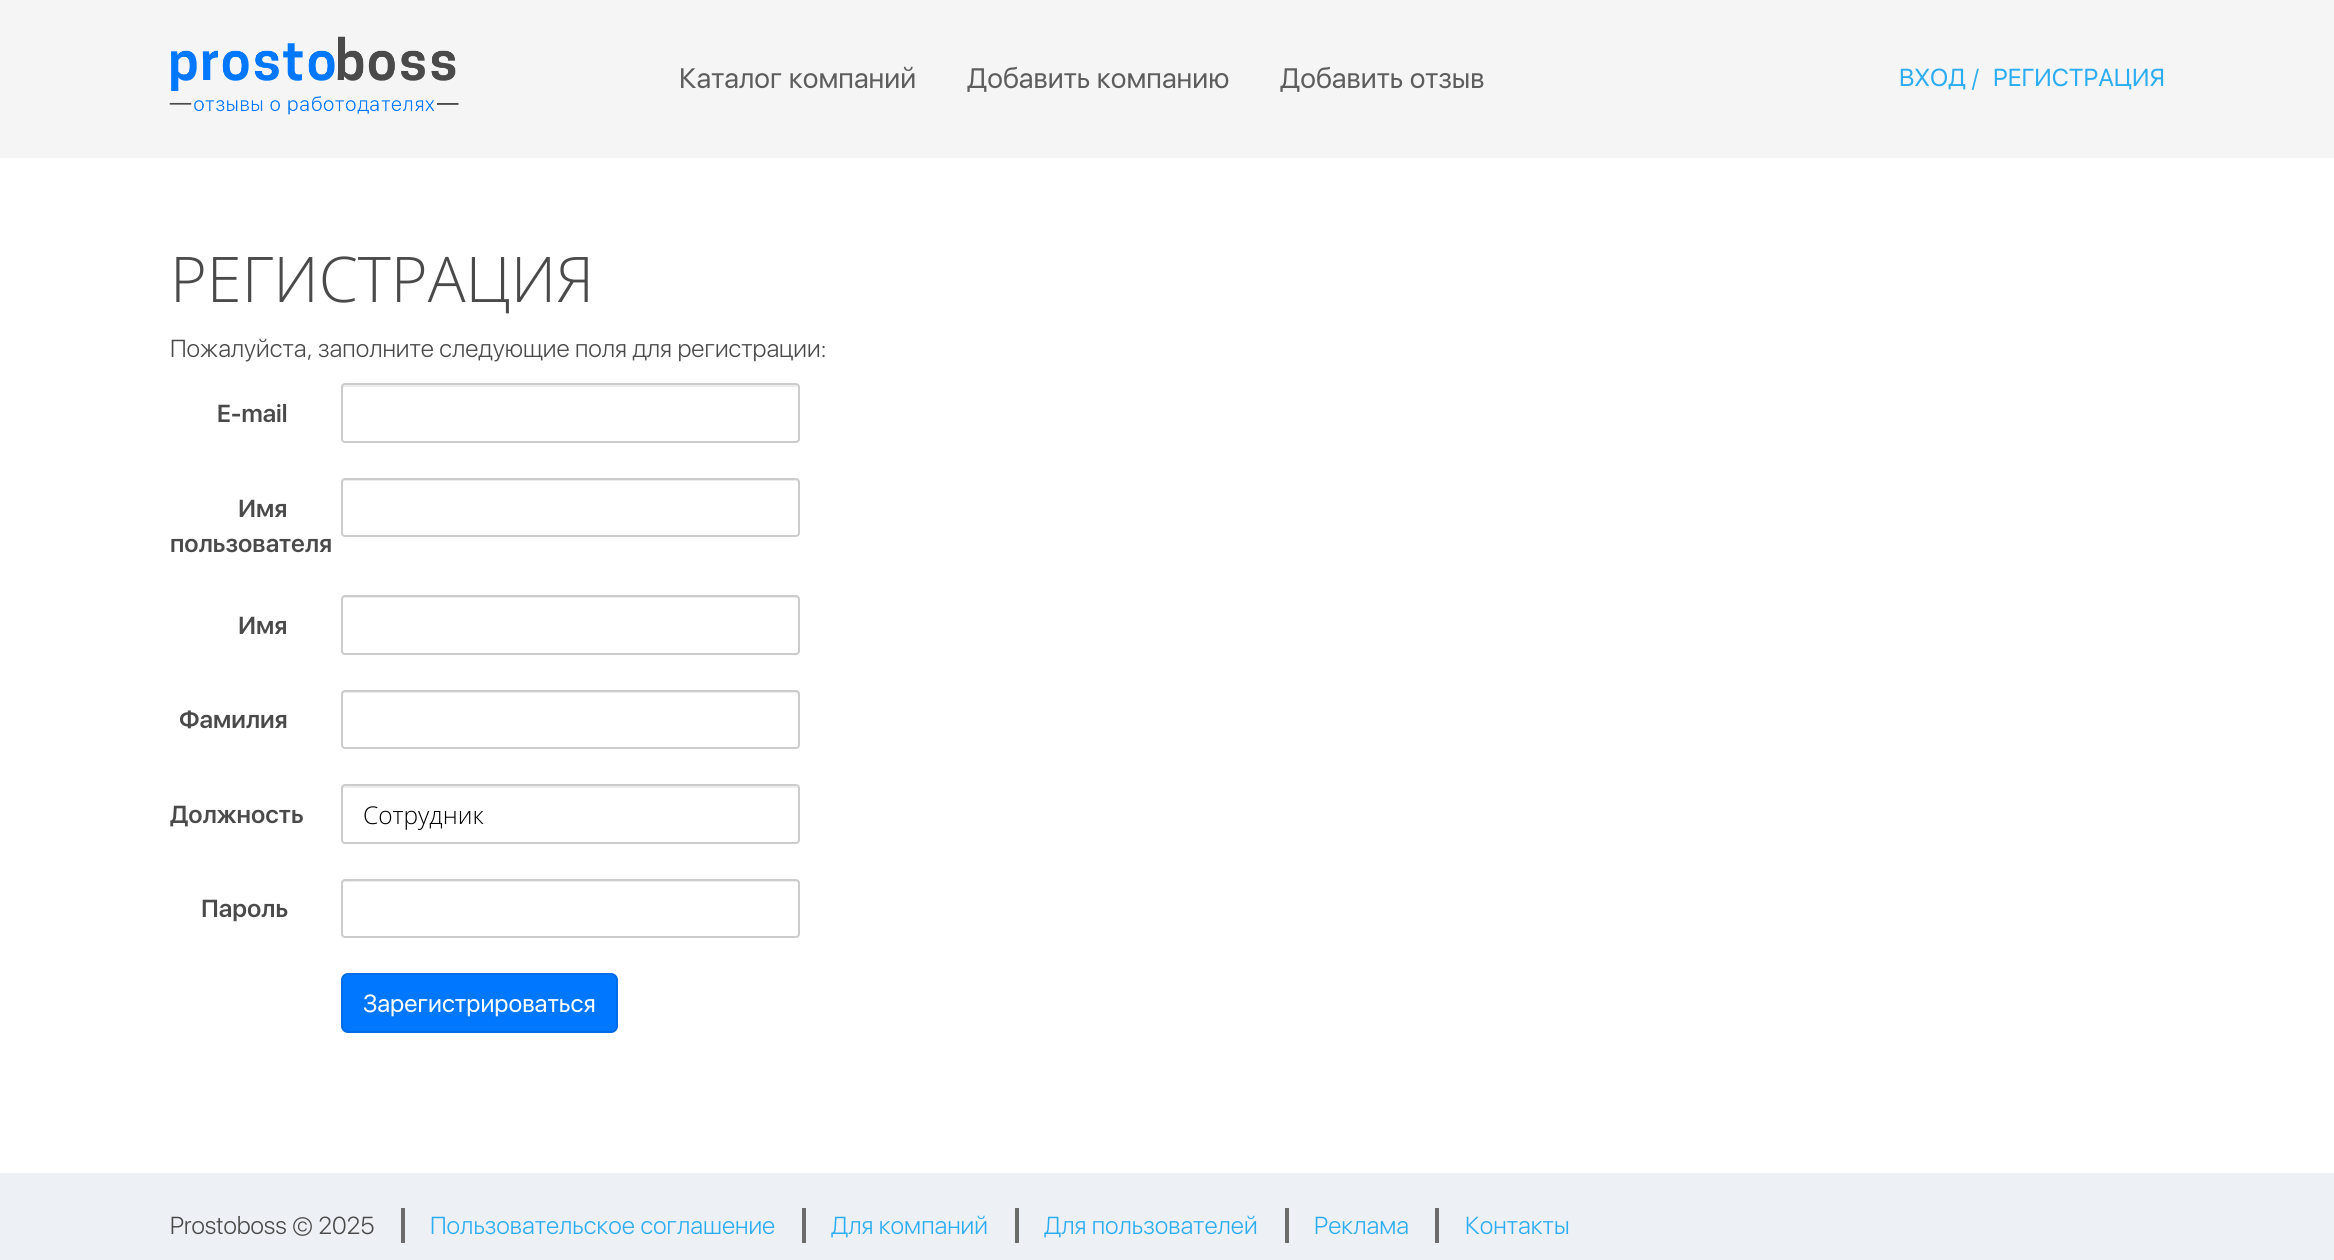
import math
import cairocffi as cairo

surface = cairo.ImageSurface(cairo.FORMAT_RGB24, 2334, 1260)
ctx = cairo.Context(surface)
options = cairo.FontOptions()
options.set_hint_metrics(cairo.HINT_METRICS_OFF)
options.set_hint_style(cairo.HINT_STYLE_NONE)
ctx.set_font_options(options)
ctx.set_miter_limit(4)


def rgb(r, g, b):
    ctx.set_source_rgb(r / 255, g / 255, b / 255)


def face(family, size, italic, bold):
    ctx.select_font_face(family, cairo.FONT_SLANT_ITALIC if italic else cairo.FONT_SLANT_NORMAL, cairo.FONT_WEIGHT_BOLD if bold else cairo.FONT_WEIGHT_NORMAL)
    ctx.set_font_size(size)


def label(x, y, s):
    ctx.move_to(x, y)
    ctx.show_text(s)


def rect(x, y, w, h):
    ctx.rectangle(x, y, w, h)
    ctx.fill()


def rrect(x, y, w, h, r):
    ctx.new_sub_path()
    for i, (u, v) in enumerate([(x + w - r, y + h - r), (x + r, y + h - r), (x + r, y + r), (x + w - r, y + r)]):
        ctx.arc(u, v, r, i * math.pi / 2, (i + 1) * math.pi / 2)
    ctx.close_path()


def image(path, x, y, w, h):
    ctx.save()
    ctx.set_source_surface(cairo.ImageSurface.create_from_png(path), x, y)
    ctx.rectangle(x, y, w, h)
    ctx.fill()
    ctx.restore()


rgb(255, 255, 255)
ctx.paint()
rgb(245, 245, 245)
rect(0, 0, 2334, 158)
image('image0.png', 169, 36, 290, 79)
face('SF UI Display', 28, 0, 0)
rgb(93, 93, 93)
label(679, 88, 'Каталог компаний')
label(967, 88, 'Добавить компанию')
label(1280, 88, 'Добавить отзыв')
face('SF UI Display', 24.5, 0, 0)
rgb(44, 173, 241)
label(1899, 86, 'ВХОД /')
label(1993, 86, 'РЕГИСТРАЦИЯ')
face('Open Sans Light', 63, 0, 0)
rgb(74, 74, 74)
label(170, 302, 'РЕГИСТРАЦИЯ')
face('SF UI Display Light', 24.5, 0, 0)
label(170, 357, 'Пожалуйста, заполните следующие поля для регистрации:')
face('SF UI Display SemiBold', 24.5, 0, 0)
label(217, 422, 'E-mail')
rgb(236, 236, 236)
ctx.new_path()
ctx.move_to(345, 387)
ctx.line_to(796, 387)
ctx.line_to(798, 388)
ctx.curve_to(798, 387, 798, 385, 796, 385)
ctx.line_to(345, 385)
ctx.line_to(343, 386)
ctx.line_to(343, 388)
ctx.close_path()
ctx.fill()
rrect(342, 384, 457, 58, 3)
rgb(204, 204, 204)
ctx.stroke()
rgb(74, 74, 74)
label(238, 517, 'Имя')
label(170, 552, 'пользователя')
rgb(236, 236, 236)
ctx.new_path()
ctx.move_to(345, 481)
ctx.line_to(796, 481)
ctx.curve_to(797, 481, 798, 482, 798, 483)
ctx.curve_to(798, 482, 798, 480, 796, 480)
ctx.line_to(345, 480)
ctx.line_to(343, 481)
ctx.line_to(343, 483)
ctx.curve_to(343, 482, 344, 481, 345, 481)
ctx.close_path()
ctx.fill()
rrect(342, 479, 457, 57, 3)
rgb(204, 204, 204)
ctx.stroke()
rgb(74, 74, 74)
label(238, 634, 'Имя')
rgb(236, 236, 236)
ctx.new_path()
ctx.move_to(345, 598)
ctx.line_to(796, 598)
ctx.curve_to(797, 598, 798, 599, 798, 600)
ctx.curve_to(798, 599, 798, 597, 796, 597)
ctx.line_to(345, 597)
ctx.line_to(343, 598)
ctx.line_to(343, 600)
ctx.curve_to(343, 599, 344, 598, 345, 598)
ctx.close_path()
ctx.fill()
rrect(342, 596, 457, 58, 3)
rgb(204, 204, 204)
ctx.stroke()
rgb(74, 74, 74)
label(179, 728, 'Фамилия')
rgb(236, 236, 236)
ctx.new_path()
ctx.move_to(345, 693)
ctx.line_to(796, 693)
ctx.curve_to(797, 693, 798, 694, 798, 695)
ctx.line_to(798, 692)
ctx.line_to(797, 691)
ctx.line_to(345, 691)
ctx.curve_to(343, 691, 343, 693, 343, 695)
ctx.curve_to(343, 694, 344, 693, 345, 693)
ctx.close_path()
ctx.fill()
rrect(342, 691, 457, 57, 3)
rgb(204, 204, 204)
ctx.stroke()
rgb(74, 74, 74)
label(170, 823, 'Должность')
rgb(236, 236, 236)
ctx.new_path()
ctx.move_to(345, 788)
ctx.line_to(796, 788)
ctx.curve_to(797, 788, 798, 788, 798, 789)
ctx.curve_to(798, 788, 798, 786, 796, 786)
ctx.line_to(345, 786)
ctx.line_to(343, 787)
ctx.line_to(343, 789)
ctx.curve_to(343, 788, 344, 788, 345, 788)
ctx.close_path()
ctx.fill()
rrect(342, 785, 457, 58, 3)
rgb(204, 204, 204)
ctx.stroke()
face('Open Sans Light', 24.5, 0, 0)
rgb(0, 0, 0)
label(363, 824, 'Сотрудник')
face('SF UI Display SemiBold', 24.5, 0, 0)
rgb(74, 74, 74)
label(201, 917, 'Пароль')
rgb(236, 236, 236)
ctx.new_path()
ctx.move_to(345, 882)
ctx.line_to(796, 882)
ctx.curve_to(797, 882, 798, 883, 798, 884)
ctx.line_to(798, 881)
ctx.line_to(797, 880)
ctx.line_to(345, 880)
ctx.curve_to(343, 880, 343, 882, 343, 884)
ctx.curve_to(343, 883, 344, 882, 345, 882)
ctx.close_path()
ctx.fill()
rrect(342, 880, 457, 57, 3)
rgb(204, 204, 204)
ctx.stroke()
rgb(0, 119, 255)
rrect(342, 974, 275, 58, 6)
ctx.fill_preserve()
rgb(0, 107, 230)
ctx.stroke()
face('SF UI Display', 24.5, 0, 0)
rgb(255, 255, 255)
label(363, 1012, 'Зарегистрироваться')
rgb(237, 241, 245)
rect(0, 1173, 2334, 87)
face('SF UI Display Light', 24.5, 0, 0)
rgb(74, 74, 74)
label(170, 1234, 'Prostoboss © 2025')
rgb(107, 107, 108)
rect(401, 1208, 4, 35)
rgb(44, 173, 241)
label(430, 1234, 'Пользовательское соглашение')
rgb(107, 107, 108)
rect(802, 1208, 4, 35)
rgb(44, 173, 241)
label(831, 1234, 'Для компаний')
rgb(107, 107, 108)
rect(1015, 1208, 4, 35)
rgb(44, 173, 241)
label(1044, 1234, 'Для пользователей')
rgb(107, 107, 108)
rect(1285, 1208, 4, 35)
rgb(44, 173, 241)
label(1314, 1234, 'Реклама')
rgb(107, 107, 108)
rect(1435, 1208, 4, 35)
rgb(44, 173, 241)
label(1465, 1234, 'Контакты')
surface.write_to_png('render.png')
